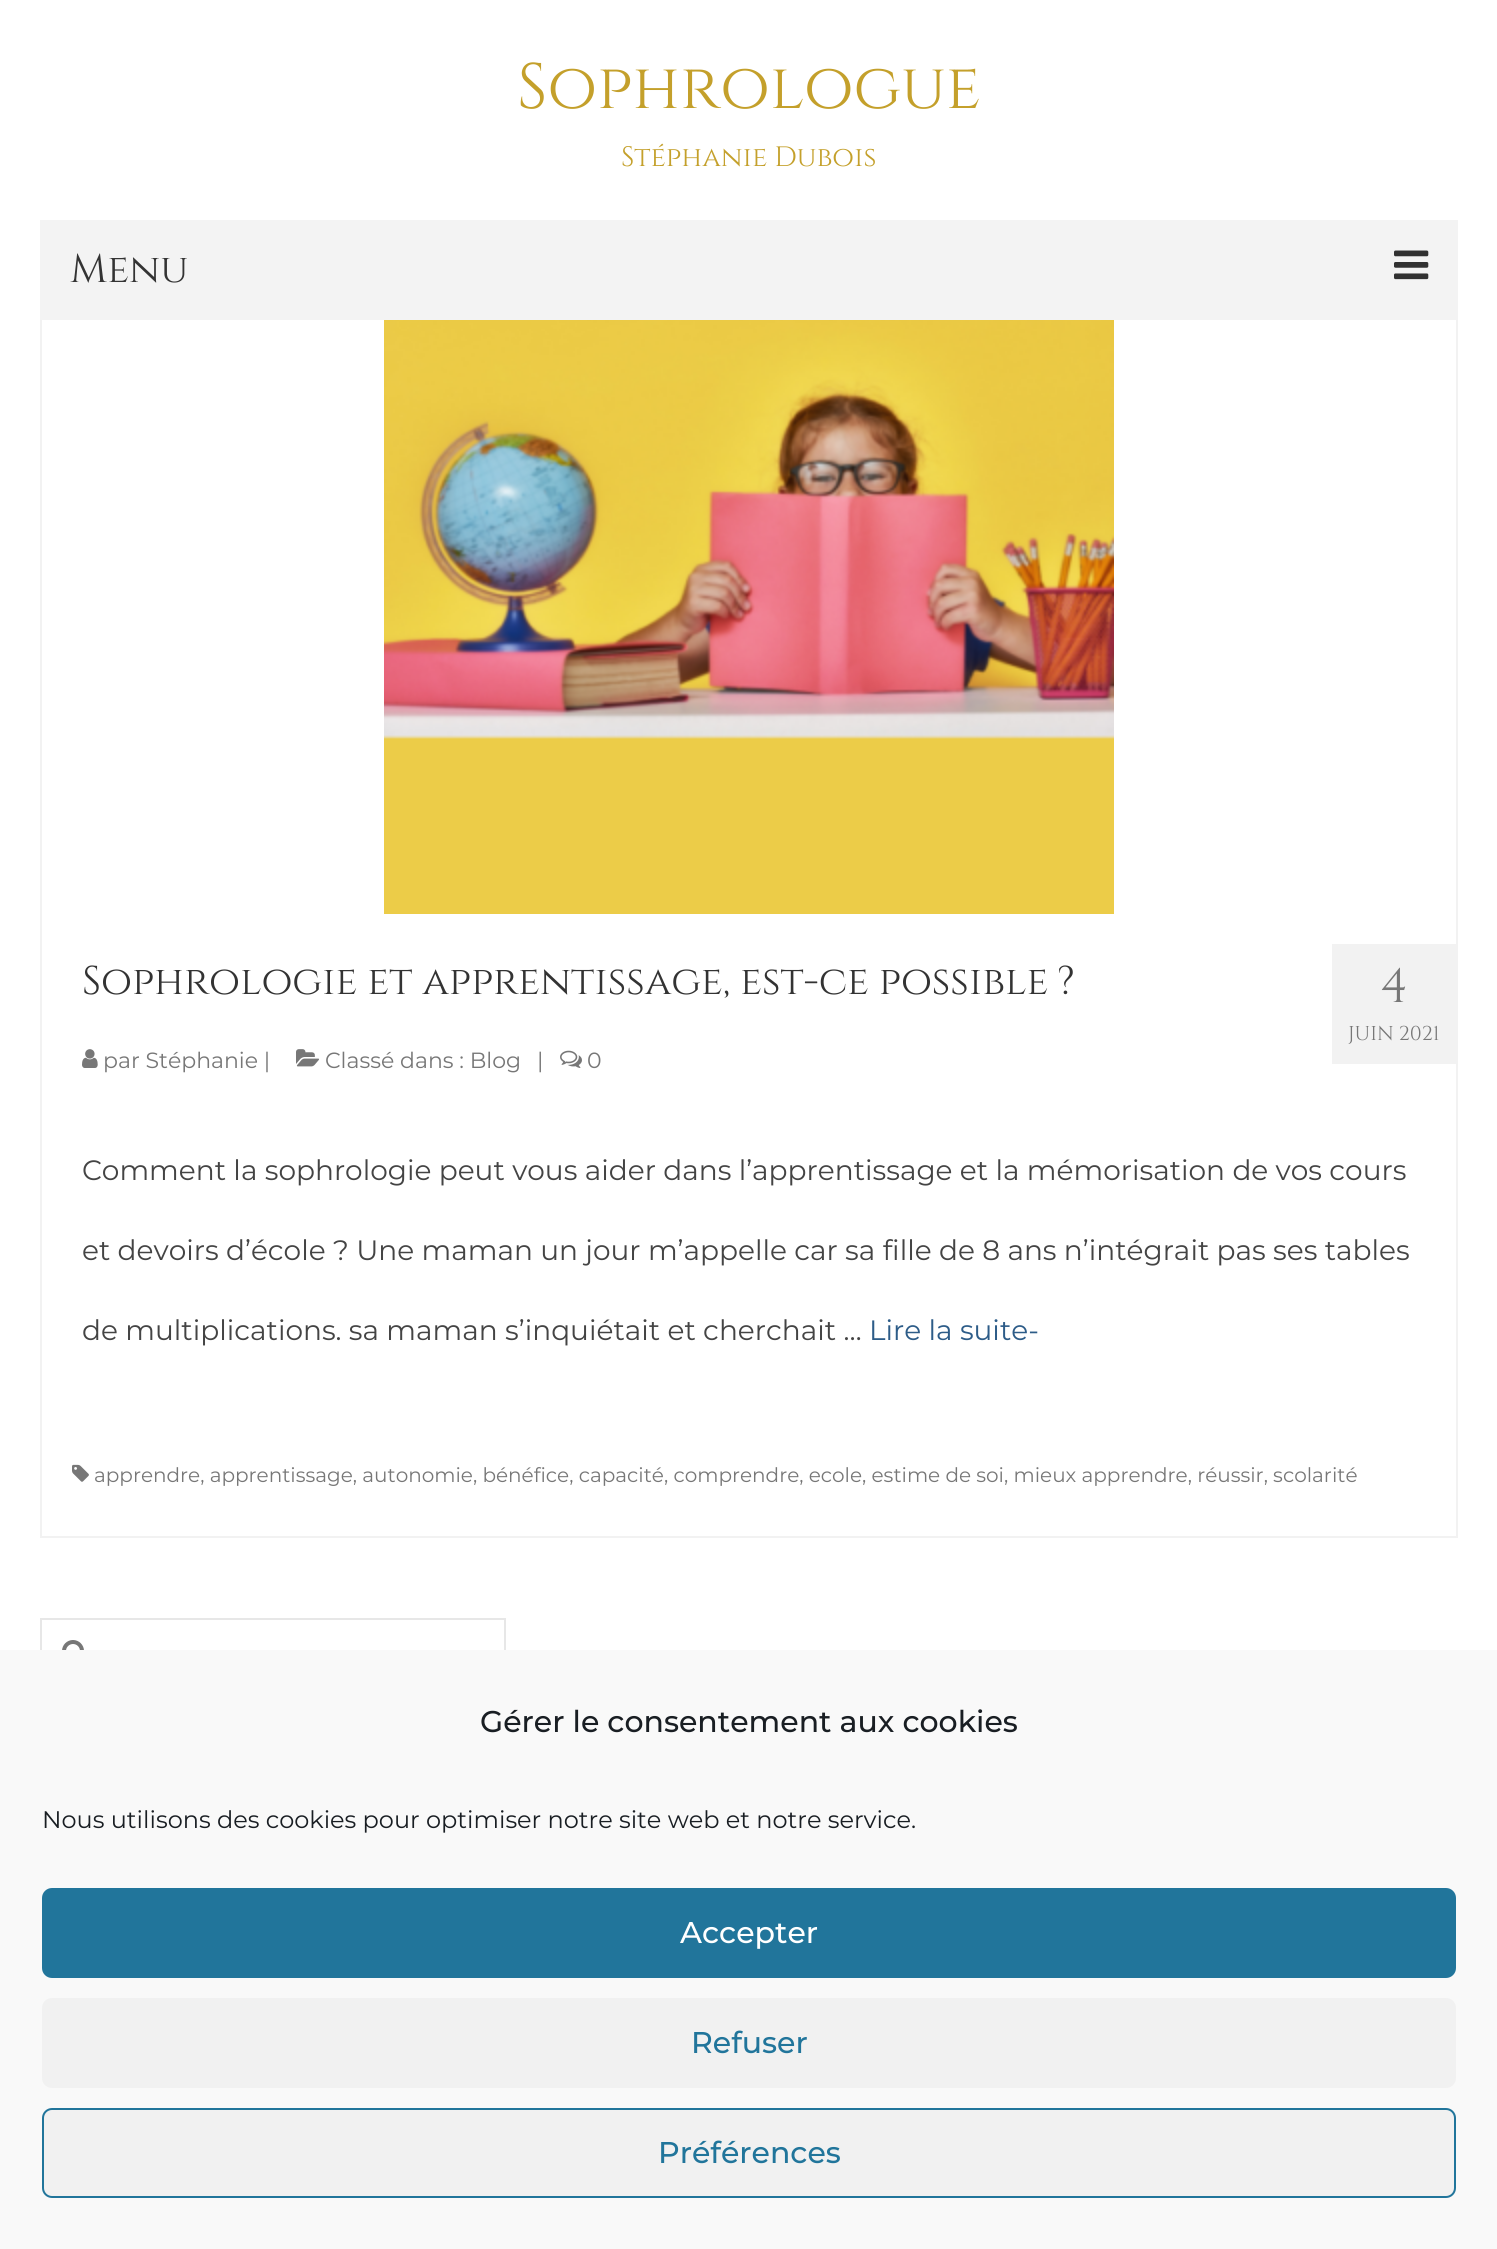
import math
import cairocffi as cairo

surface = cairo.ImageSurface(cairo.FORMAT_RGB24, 1497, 2249)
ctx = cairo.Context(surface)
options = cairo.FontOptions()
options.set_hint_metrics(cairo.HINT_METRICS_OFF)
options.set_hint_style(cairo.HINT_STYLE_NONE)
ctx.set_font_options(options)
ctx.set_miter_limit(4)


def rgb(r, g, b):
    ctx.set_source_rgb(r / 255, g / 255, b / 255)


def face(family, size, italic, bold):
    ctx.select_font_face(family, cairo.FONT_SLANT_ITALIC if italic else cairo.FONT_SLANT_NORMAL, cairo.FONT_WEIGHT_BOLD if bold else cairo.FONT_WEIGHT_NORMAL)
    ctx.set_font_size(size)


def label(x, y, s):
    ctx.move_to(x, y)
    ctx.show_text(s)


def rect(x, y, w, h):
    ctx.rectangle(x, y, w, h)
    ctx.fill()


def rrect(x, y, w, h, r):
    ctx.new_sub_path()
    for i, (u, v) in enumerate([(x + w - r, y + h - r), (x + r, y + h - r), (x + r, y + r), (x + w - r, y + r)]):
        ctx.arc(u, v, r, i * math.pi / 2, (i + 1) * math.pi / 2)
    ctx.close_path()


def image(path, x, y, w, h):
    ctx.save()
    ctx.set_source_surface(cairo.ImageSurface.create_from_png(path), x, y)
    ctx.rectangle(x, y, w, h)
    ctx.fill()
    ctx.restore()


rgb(255, 255, 255)
ctx.paint()
ctx.rectangle(41, 183, 1416, 1354)
rgb(242, 242, 242)
ctx.stroke()
rgb(255, 255, 255)
rect(40, 182, 1418, 138)
face('Cinzel', 64, 0, 0)
rgb(196, 160, 43)
label(517, 108, 'Sophrologue')
face('Cinzel', 28, 0, 0)
label(621, 166, 'Stéphanie Dubois')
rgb(243, 243, 243)
rect(40, 220, 1418, 100)
face('Cinzel', 40, 0, 0)
rgb(51, 51, 51)
label(70, 282, 'Menu')
image('image0.png', 1394, 250, 35, 30)
image('image1.png', 384, 320, 730, 594)
label(82, 994, 'Sophrologie et apprentissage, est-ce possible ?')
image('image2.png', 82, 1049, 16, 19)
face('Montserrat', 22, 0, 0)
rgb(119, 119, 119)
label(103, 1068, 'par Stéphanie |')
image('image3.png', 296, 1049, 23, 18)
label(325, 1068, 'Classé dans : Blog')
label(537, 1068, '|')
image('image4.png', 560, 1050, 22, 18)
label(587, 1068, '0')
rgb(242, 242, 242)
rect(1332, 944, 124, 120)
face('Cinzel', 48, 0, 0)
rgb(119, 119, 119)
label(1380, 1002, '4')
face('Cinzel', 20, 0, 0)
label(1348, 1040, 'JUIN 2021')
face('Montserrat', 28, 0, 0)
rgb(68, 68, 68)
label(82, 1180, 'Comment la sophrologie peut vous aider dans l’apprentissage et la mémorisation de vos cours')
label(82, 1260, 'et devoirs d’école ? Une maman un jour m’appelle car sa fille de 8 ans n’intégrait pas ses tables')
label(82, 1340, 'de multiplications. sa maman s’inquiétait et cherchait …')
rgb(45, 92, 136)
label(869, 1340, 'Lire la suite-')
image('image5.png', 72, 1464, 17, 18)
face('Montserrat', 20, 0, 0)
rgb(119, 119, 119)
label(94, 1482, 'apprendre, apprentissage, autonomie, bénéfice, capacité, comprendre, ecole, estime de soi, mieux apprendre, réussir, scolarité')
ctx.rectangle(41, 1619, 464, 68)
rgb(231, 231, 231)
ctx.stroke()
image('image6.png', 62, 1640, 22, 10)
rgb(249, 249, 249)
rect(0, 1650, 1497, 599)
face('Montserrat Medium', 30, 0, 0)
rgb(25, 30, 35)
label(480, 1732, 'Gérer le consentement aux cookies')
face('Montserrat', 24, 0, 0)
label(42, 1828, 'Nous utilisons des cookies pour optimiser notre site web et notre service.')
rgb(33, 117, 155)
rrect(43, 1889, 1412, 88, 9)
ctx.fill_preserve()
ctx.stroke()
face('Montserrat Medium', 30, 0, 0)
rgb(255, 255, 255)
label(680, 1943, 'Accepter')
rgb(241, 241, 241)
rrect(42, 1998, 1414, 90, 10)
ctx.fill()
rgb(33, 117, 155)
label(691, 2053, 'Refuser')
rgb(241, 241, 241)
rrect(43, 2109, 1412, 88, 9)
ctx.fill_preserve()
rgb(33, 117, 155)
ctx.stroke()
label(658, 2163, 'Préférences')
surface.write_to_png('render.png')
